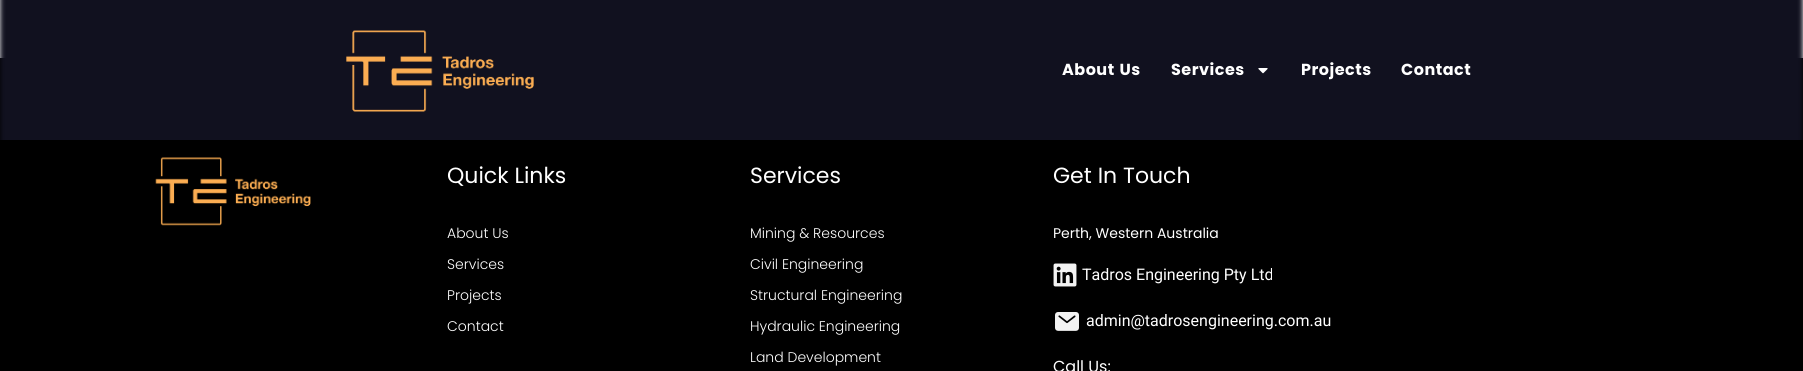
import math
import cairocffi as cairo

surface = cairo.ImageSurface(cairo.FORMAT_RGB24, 1803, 371)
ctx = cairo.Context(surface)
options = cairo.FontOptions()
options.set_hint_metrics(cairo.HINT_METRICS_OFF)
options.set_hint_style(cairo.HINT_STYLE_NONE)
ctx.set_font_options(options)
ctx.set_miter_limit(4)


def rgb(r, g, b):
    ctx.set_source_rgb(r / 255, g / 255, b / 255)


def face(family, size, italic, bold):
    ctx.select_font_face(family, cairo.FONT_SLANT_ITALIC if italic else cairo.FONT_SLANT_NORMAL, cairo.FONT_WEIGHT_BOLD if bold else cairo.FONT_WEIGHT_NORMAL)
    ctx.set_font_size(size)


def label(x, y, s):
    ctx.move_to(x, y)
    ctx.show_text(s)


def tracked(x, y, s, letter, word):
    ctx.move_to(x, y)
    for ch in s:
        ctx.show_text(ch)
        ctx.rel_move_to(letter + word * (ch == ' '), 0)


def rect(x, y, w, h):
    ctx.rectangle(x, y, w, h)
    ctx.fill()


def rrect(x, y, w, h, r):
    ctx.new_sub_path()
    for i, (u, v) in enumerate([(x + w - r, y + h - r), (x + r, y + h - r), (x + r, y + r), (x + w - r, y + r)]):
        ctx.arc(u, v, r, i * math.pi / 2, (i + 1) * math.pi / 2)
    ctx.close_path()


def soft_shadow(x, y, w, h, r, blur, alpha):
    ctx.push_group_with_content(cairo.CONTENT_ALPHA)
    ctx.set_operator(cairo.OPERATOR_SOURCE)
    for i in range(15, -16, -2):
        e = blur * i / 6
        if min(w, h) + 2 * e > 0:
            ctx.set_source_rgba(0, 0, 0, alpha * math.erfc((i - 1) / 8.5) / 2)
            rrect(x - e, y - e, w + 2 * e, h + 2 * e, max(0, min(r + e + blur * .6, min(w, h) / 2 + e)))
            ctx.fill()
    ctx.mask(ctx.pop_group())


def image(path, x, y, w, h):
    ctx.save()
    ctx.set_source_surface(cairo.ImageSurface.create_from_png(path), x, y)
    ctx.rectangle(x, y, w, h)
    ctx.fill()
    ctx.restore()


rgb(255, 255, 255)
ctx.paint()
rgb(0, 0, 0)
rect(0, 58, 1803, 313)
image('image2.png', 155, 157, 156, 69)
ctx.save()
ctx.rectangle(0, 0, 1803, 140)
ctx.clip()
rgb(17, 17, 31)
soft_shadow(0, -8, 1803, 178, 0, 2.5, 1)
ctx.restore()
image('image0.png', 346, 30, 188, 82)
face('Poppins', 16, 0, 1)
rgb(255, 255, 255)
tracked(1062, 75, 'About Us', 0.5, 1)
tracked(1171, 75, 'Services', 0.5, 0)
image('image1.png', 1258, 68, 10, 6)
tracked(1301, 75, 'Projects', 0.5, 0)
tracked(1401, 75, 'Contact', 0.5, 0)
face('Poppins', 22, 0, 0)
label(447, 183, 'Quick Links')
face('Poppins Light', 14, 0, 0)
label(447, 238, 'About Us')
label(447, 269, 'Services')
label(447, 300, 'Projects')
label(447, 331, 'Contact')
face('Poppins', 22, 0, 0)
label(750, 183, 'Services')
face('Poppins Light', 14, 0, 0)
label(750, 238, 'Mining & Resources')
label(750, 269, 'Civil Engineering')
label(750, 300, 'Structural Engineering')
label(750, 331, 'Hydraulic Engineering')
label(750, 362, 'Land Development')
face('Poppins', 22, 0, 0)
label(1053, 183, 'Get In Touch')
face('Poppins', 14, 0, 0)
label(1053, 238, 'Perth, Western Australia')
image('image3.png', 1053, 263, 24, 24)
face('Roboto', 16, 0, 0)
label(1082, 280, 'Tadros Engineering Pty Ltd')
image('image4.png', 1055, 312, 24, 19)
label(1086, 326, 'admin@tadrosengineering.com.au')
face('Poppins', 16, 0, 0)
label(1053, 372, 'Call Us:')
surface.write_to_png('render.png')
